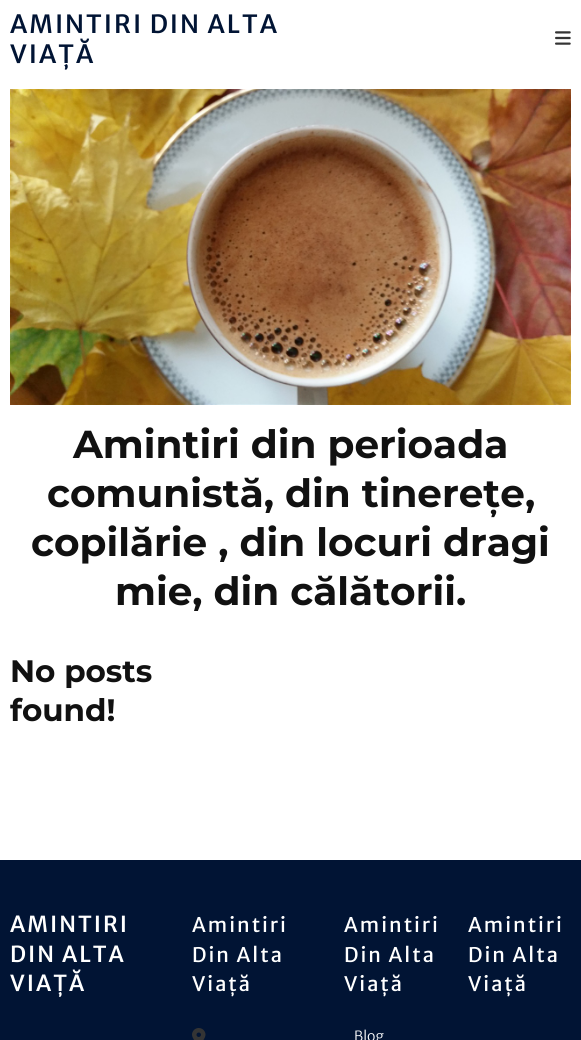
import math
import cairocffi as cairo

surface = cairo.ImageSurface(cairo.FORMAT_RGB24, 581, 1040)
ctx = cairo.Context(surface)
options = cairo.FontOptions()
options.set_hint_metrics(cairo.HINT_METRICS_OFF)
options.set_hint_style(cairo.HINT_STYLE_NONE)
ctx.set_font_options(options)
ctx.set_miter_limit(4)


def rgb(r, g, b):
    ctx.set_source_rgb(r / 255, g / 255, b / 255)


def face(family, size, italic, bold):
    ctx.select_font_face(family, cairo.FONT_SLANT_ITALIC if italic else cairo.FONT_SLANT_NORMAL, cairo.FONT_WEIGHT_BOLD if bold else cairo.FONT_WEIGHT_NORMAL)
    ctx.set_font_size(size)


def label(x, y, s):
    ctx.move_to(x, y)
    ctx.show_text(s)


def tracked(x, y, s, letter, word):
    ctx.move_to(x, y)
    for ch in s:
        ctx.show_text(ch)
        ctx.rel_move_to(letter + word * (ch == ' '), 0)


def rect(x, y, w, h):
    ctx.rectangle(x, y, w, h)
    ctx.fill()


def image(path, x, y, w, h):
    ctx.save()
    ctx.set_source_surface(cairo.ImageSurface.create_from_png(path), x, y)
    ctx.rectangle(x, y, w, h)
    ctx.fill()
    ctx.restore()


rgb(255, 255, 255)
ctx.paint()
face('Merriweather Sans Medium', 25, 0, 0)
rgb(1, 20, 52)
tracked(10, 33, 'AMINTIRI DIN ALTA', 2, 0)
tracked(10, 63, 'VIAȚĂ', 2, 0)
image('image0.png', 555, 31, 16, 14)
image('image1.png', 10, 89, 561, 316)
face('Montserrat', 39, 0, 1)
rgb(17, 17, 17)
label(73, 458, 'Amintiri din perioada')
label(47, 507, 'comunistă, din tinerețe,')
label(31, 556, 'copilărie , din locuri dragi')
label(115, 605, 'mie, din călătorii.')
face('Montserrat', 31, 0, 1)
label(10, 682, 'No posts')
label(10, 721, 'found!')
rgb(1, 20, 52)
rect(0, 860, 581, 180)
face('Merriweather Sans Medium', 22, 0, 0)
rgb(255, 255, 255)
tracked(10, 932, 'AMINTIRI', 2, 0)
tracked(10, 962, 'DIN ALTA', 2, 0)
tracked(10, 991, 'VIAȚĂ', 2, 0)
face('Merriweather Sans', 20, 0, 0)
tracked(192, 932, 'Amintiri', 2, 0)
tracked(192, 962, 'Din Alta', 2, 0)
tracked(192, 991, 'Viață', 2, 0)
image('image2.png', 192, 1028, 14, 12)
tracked(344, 932, 'Amintiri', 2, 0)
tracked(344, 962, 'Din Alta', 2, 0)
tracked(344, 991, 'Viață', 2, 0)
face('Merriweather Sans Light', 14, 0, 0)
label(354, 1041, 'Blog')
face('Merriweather Sans', 20, 0, 0)
tracked(468, 932, 'Amintiri', 2, 0)
tracked(468, 962, 'Din Alta', 2, 0)
tracked(468, 991, 'Viață', 2, 0)
surface.write_to_png('render.png')
